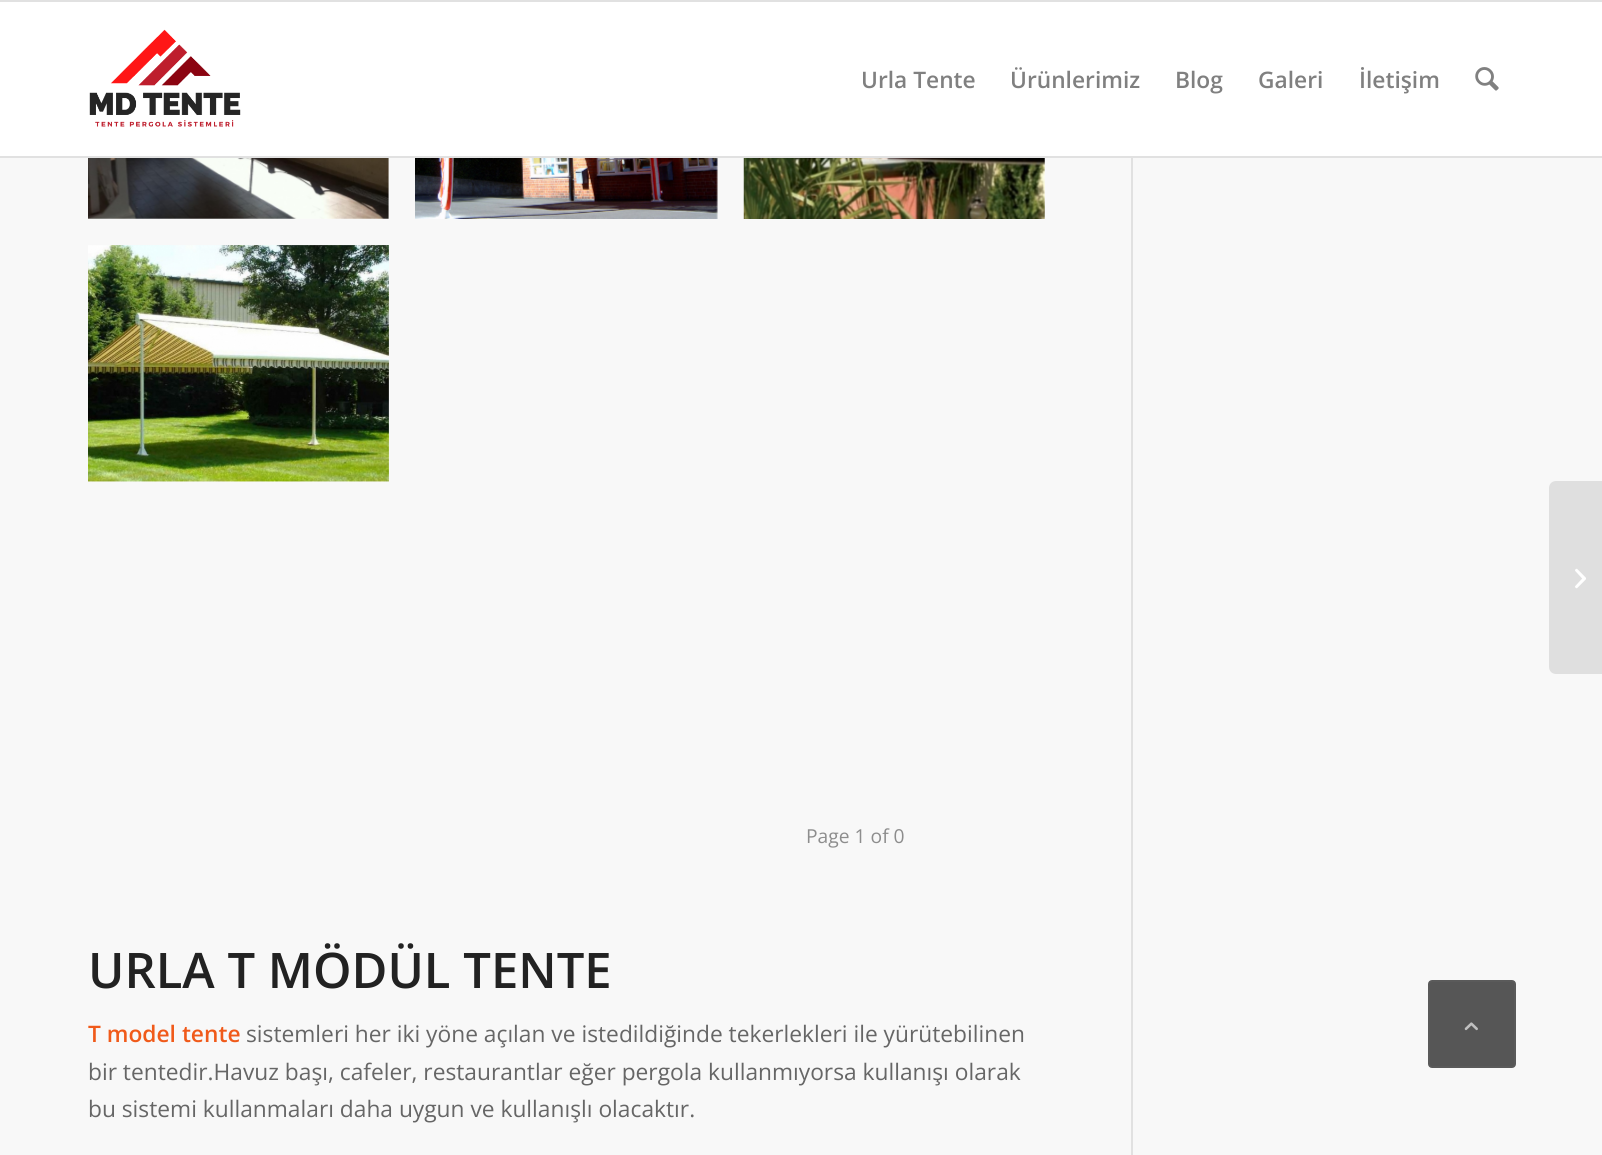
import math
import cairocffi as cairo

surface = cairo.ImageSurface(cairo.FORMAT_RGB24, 1602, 1155)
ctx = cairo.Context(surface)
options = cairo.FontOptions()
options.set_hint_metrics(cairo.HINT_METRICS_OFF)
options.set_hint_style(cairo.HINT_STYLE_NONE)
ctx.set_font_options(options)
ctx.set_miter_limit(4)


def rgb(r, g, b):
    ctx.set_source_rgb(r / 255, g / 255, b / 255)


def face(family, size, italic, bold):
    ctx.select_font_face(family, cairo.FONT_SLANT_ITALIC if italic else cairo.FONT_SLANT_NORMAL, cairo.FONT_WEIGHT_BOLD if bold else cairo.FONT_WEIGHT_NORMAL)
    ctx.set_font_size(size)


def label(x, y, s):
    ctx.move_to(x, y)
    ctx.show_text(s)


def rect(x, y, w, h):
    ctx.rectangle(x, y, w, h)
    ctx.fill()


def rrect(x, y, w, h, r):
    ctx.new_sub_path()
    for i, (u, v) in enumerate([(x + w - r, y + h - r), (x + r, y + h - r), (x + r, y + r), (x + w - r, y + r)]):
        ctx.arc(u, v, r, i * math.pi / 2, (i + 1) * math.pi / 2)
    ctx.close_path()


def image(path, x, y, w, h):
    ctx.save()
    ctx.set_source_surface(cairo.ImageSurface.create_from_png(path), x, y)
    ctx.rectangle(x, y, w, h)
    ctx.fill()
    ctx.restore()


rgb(248, 248, 248)
ctx.paint()
rgb(255, 255, 255)
rect(0, 2, 1602, 154)
rgb(225, 225, 225)
rect(0, 0, 1602, 2)
rect(0, 156, 1602, 2)
image('image0.png', 89, 29, 152, 98)
face('Open Sans SemiBold', 22.75, 0, 0)
rgb(128, 128, 128)
label(861, 88, 'Urla Tente')
label(1010, 88, 'Ürünlerimiz')
label(1175, 88, 'Blog')
label(1258, 88, 'Galeri')
label(1359, 88, 'İletişim')
image('image1.png', 1475, 67, 24, 24)
rgb(223, 223, 223)
ctx.new_path()
ctx.move_to(1556, 481)
ctx.line_to(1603, 481)
ctx.line_to(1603, 674)
ctx.line_to(1556, 674)
ctx.curve_to(1552, 674, 1549, 671, 1549, 667)
ctx.line_to(1549, 488)
ctx.curve_to(1549, 484, 1552, 481, 1556, 481)
ctx.close_path()
ctx.fill()
image('image2.png', 1575, 568, 11, 21)
rgb(225, 225, 225)
rect(1131, 158, 2, 997)
image('image3.png', 88, 158, 301, 61)
image('image4.png', 415, 158, 303, 61)
image('image5.png', 743, 158, 302, 61)
image('image6.png', 88, 245, 301, 237)
face('Open Sans', 19.25, 0, 0)
rgb(141, 141, 141)
label(806, 843, 'Page 1 of 0')
face('Open Sans SemiBold', 49, 0, 0)
rgb(34, 34, 34)
label(88, 988, 'URLA T MÖDÜL TENTE')
face('Open Sans SemiBold', 22.75, 0, 0)
rgb(240, 90, 26)
label(88, 1042, 'T model tente')
face('Open Sans', 22.75, 0, 0)
rgb(102, 102, 102)
label(246, 1042, 'sistemleri her iki yöne açılan ve istedildiğinde tekerlekleri ile yürütebilinen')
label(88, 1080, 'bir tentedir.Havuz başı, cafeler, restaurantlar eğer pergola kullanmıyorsa kullanışı olarak')
label(88, 1117, 'bu sistemi kullanmaları daha uygun ve kullanışlı olacaktır.')
rgb(86, 86, 86)
rrect(1429, 981, 86, 86, 3)
ctx.fill_preserve()
rgb(90, 90, 90)
ctx.stroke()
image('image7.png', 1464, 1022, 14, 9)
surface.write_to_png('render.png')
